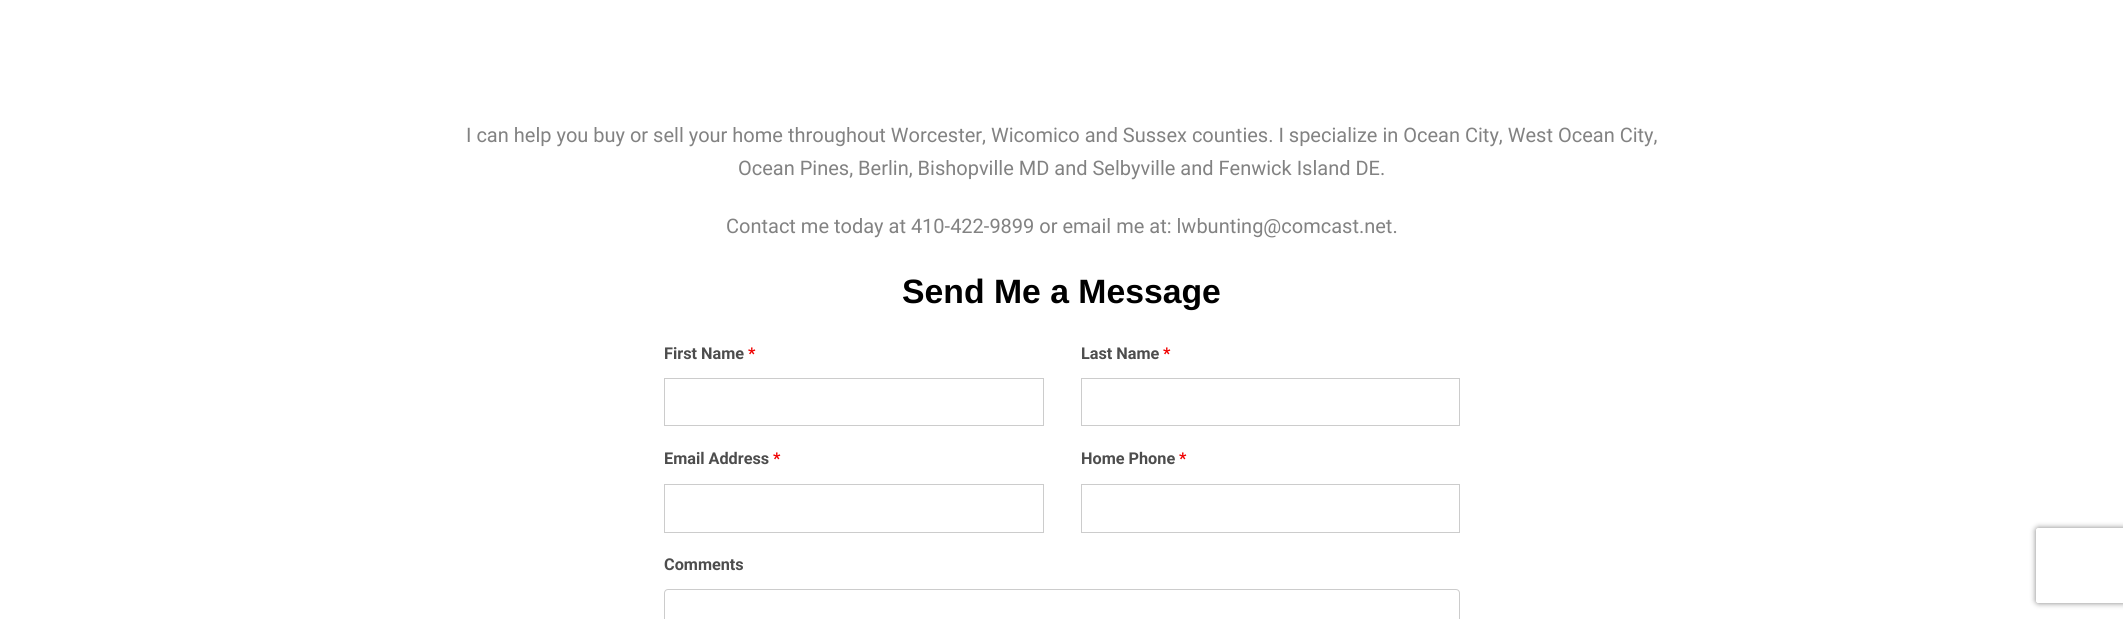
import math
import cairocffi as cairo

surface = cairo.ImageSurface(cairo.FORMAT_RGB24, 2123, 619)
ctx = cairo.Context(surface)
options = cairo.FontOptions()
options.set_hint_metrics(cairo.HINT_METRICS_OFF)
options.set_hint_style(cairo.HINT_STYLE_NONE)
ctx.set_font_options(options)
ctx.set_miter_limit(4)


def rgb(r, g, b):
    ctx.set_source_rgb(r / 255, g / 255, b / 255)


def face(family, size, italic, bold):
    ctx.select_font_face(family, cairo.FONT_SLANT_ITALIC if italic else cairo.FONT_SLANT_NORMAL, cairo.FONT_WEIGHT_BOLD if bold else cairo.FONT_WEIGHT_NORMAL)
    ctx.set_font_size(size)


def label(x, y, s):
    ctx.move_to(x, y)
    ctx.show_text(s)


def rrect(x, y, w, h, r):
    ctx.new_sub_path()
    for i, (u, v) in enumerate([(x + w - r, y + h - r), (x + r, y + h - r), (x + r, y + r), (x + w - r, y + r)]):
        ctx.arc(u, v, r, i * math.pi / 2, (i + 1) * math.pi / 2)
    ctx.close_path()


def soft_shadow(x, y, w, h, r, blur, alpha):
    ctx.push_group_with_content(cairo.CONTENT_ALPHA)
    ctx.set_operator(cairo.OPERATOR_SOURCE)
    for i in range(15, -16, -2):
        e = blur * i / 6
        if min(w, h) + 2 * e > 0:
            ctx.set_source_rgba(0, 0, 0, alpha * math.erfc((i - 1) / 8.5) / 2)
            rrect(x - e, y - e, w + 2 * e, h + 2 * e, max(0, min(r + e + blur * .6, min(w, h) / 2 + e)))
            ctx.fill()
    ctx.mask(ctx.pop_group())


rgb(255, 255, 255)
ctx.paint()
face('Roboto', 20, 0, 0)
rgb(130, 130, 130)
label(466, 142, 'I can help you buy or sell your home throughout Worcester, Wicomico and Sussex counties. I specialize in Ocean City, West Ocean City,')
label(738, 175, 'Ocean Pines, Berlin, Bishopville MD and Selbyville and Fenwick Island DE.')
label(726, 233, 'Contact me today at 410-422-9899 or email me at: lwbunting@comcast.net.')
face('Liberation Sans', 33.75, 0, 1)
rgb(0, 0, 0)
label(902, 303, 'Send Me a Message')
face('Roboto', 16.25, 0, 1)
rgb(77, 77, 77)
label(664, 359, 'First Name')
rgb(240, 0, 0)
label(748, 359, '*')
ctx.rectangle(664.5, 378.5, 379, 47)
rgb(204, 204, 204)
ctx.set_line_width(1)
ctx.stroke()
rgb(77, 77, 77)
label(1081, 359, 'Last Name')
rgb(240, 0, 0)
label(1163, 359, '*')
ctx.rectangle(1081.5, 378.5, 378, 47)
rgb(204, 204, 204)
ctx.stroke()
rgb(77, 77, 77)
label(664, 464, 'Email Address')
rgb(240, 0, 0)
label(773, 464, '*')
ctx.rectangle(664.5, 484.5, 379, 48)
rgb(204, 204, 204)
ctx.stroke()
rgb(77, 77, 77)
label(1081, 464, 'Home Phone')
rgb(240, 0, 0)
label(1179, 464, '*')
ctx.rectangle(1081.5, 484.5, 378, 48)
rgb(204, 204, 204)
ctx.stroke()
rgb(77, 77, 77)
label(664, 570, 'Comments')
rrect(664.5, 589.5, 795, 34, 3.5)
rgb(204, 204, 204)
ctx.stroke()
ctx.save()
ctx.set_fill_rule(cairo.FILL_RULE_EVEN_ODD)
ctx.new_path()
ctx.move_to(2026, 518)
ctx.line_to(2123, 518)
ctx.line_to(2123, 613)
ctx.line_to(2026, 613)
ctx.close_path()
ctx.move_to(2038.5, 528)
ctx.line_to(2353.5, 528)
ctx.curve_to(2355, 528, 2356, 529, 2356, 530.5)
ctx.line_to(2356, 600.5)
ctx.curve_to(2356, 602, 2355, 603, 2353.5, 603)
ctx.line_to(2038.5, 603)
ctx.curve_to(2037, 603, 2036, 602, 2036, 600.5)
ctx.line_to(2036, 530.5)
ctx.curve_to(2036, 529, 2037, 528, 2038.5, 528)
ctx.close_path()
ctx.clip()
rgb(128, 128, 128)
soft_shadow(2036, 528, 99, 75, 2.5, 3, 1)
ctx.restore()
surface.write_to_png('render.png')
